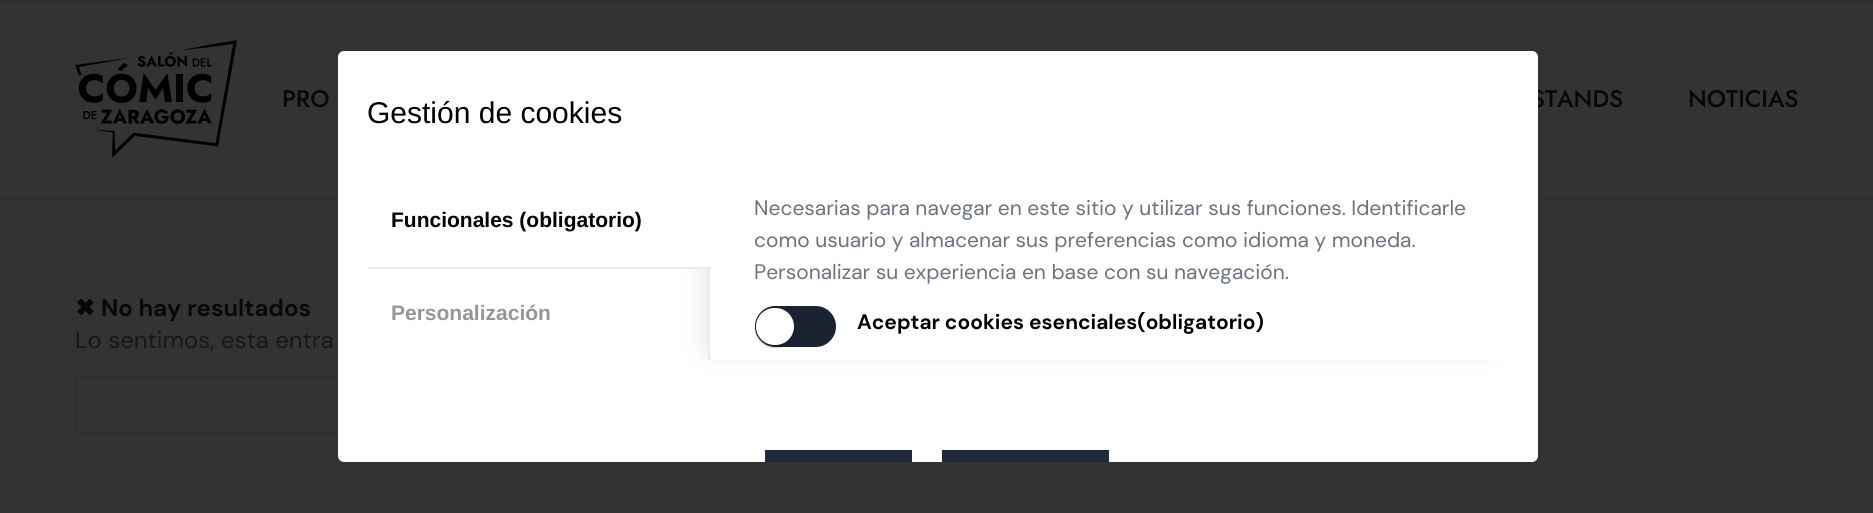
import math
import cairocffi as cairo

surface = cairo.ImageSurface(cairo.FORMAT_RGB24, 1873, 513)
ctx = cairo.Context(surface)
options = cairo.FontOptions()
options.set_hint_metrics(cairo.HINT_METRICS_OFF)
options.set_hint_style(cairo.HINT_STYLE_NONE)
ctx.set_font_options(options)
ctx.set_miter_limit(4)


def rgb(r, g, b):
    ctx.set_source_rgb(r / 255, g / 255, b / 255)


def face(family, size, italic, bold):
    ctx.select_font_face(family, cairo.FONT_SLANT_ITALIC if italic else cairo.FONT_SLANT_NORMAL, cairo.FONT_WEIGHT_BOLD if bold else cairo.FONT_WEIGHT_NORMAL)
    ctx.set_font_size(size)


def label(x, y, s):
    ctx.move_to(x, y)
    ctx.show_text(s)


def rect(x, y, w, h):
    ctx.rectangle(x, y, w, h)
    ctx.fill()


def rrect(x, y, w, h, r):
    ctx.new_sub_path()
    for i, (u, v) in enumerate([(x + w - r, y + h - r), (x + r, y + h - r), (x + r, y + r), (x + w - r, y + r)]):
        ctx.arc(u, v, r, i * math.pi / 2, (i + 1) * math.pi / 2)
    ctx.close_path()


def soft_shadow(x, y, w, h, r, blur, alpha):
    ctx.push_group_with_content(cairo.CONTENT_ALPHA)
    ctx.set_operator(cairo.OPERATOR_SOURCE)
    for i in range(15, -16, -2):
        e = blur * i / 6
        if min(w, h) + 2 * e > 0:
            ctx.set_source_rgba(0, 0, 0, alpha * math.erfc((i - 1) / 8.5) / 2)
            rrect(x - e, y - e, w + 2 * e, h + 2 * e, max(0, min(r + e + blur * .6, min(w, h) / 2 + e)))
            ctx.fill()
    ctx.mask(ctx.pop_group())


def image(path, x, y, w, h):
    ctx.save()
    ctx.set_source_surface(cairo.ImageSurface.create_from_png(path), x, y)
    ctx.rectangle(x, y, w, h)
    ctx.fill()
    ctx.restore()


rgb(51, 51, 51)
ctx.paint()
rgb(47, 47, 47)
rect(0, 0, 1873, 2)
rect(0, 197, 1873, 2)
image('image0.png', 75, 40, 162, 118)
face('Jost Medium', 24, 0, 0)
rgb(6, 8, 12)
label(282, 107, 'PRO')
label(1531, 107, 'STANDS')
label(1688, 107, 'NOTICIAS')
face('DejaVu Sans', 24, 0, 1)
label(75, 316, '✖')
face('DM Sans', 24, 0, 1)
label(101, 316, 'No hay resultados')
face('DM Sans', 24, 0, 0)
rgb(21, 23, 26)
label(75, 348, 'Lo sentimos, esta entra')
ctx.rectangle(76, 378, 448, 56)
rgb(47, 47, 47)
ctx.stroke()
rgb(255, 255, 255)
rrect(338, 51, 1200, 411, 6)
ctx.fill()
face('Liberation Sans', 30, 0, 0)
rgb(0, 0, 0)
label(367, 123, 'Gestión de cookies')
ctx.save()
ctx.rectangle(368, 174, 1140, 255)
ctx.clip()
ctx.set_fill_rule(cairo.FILL_RULE_EVEN_ODD)
ctx.new_path()
ctx.move_to(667, 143)
ctx.line_to(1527, 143)
ctx.line_to(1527, 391)
ctx.line_to(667, 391)
ctx.close_path()
ctx.move_to(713, 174)
ctx.line_to(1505, 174)
ctx.curve_to(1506.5, 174, 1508, 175.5, 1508, 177)
ctx.line_to(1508, 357)
ctx.curve_to(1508, 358.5, 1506.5, 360, 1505, 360)
ctx.line_to(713, 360)
ctx.curve_to(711.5, 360, 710, 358.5, 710, 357)
ctx.line_to(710, 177)
ctx.curve_to(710, 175.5, 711.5, 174, 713, 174)
ctx.close_path()
ctx.clip()
rgb(0, 0, 0)
soft_shadow(713, 189, 768, 156, 0, 15, 0.2)
ctx.restore()
rgb(235, 235, 235)
rect(708, 267, 2, 93)
rgb(255, 255, 255)
ctx.new_path()
ctx.move_to(371, 174)
ctx.line_to(711, 174)
ctx.line_to(711, 269)
ctx.line_to(368, 269)
ctx.line_to(368, 177)
ctx.curve_to(368, 175.5, 369.5, 174, 371, 174)
ctx.close_path()
ctx.fill()
rgb(235, 235, 235)
rect(368, 267, 343, 2)
face('Liberation Sans', 21, 0, 1)
rgb(0, 0, 0)
label(391, 227, 'Funcionales (obligatorio)')
rgb(150, 150, 150)
label(391, 320, 'Personalización')
face('DM Sans', 21, 0, 0)
rgb(107, 114, 128)
label(754, 215, 'Necesarias para navegar en este sitio y utilizar sus funciones. Identificarle')
label(754, 247, 'como usuario y almacenar sus preferencias como idioma y moneda.')
label(754, 279, 'Personalizar su experiencia en base con su navegación.')
rgb(30, 41, 59)
rrect(755, 306, 81, 41, 20.5)
ctx.fill()
ctx.set_source_rgba(0, 0, 0, 0.15)
ctx.new_path()
ctx.move_to(776, 306)
ctx.line_to(816, 306)
ctx.curve_to(827, 306, 836, 315, 836, 326)
ctx.curve_to(836, 338, 827, 347, 816, 347)
ctx.line_to(776, 347)
ctx.curve_to(764, 347, 755, 338, 755, 326)
ctx.curve_to(755, 315, 764, 306, 776, 306)
ctx.close_path()
ctx.fill()
rgb(0, 0, 0)
soft_shadow(755, 308, 40, 40, 20, 1, 0.2)
rgb(255, 255, 255)
rrect(756, 308, 38, 37, 18.5)
ctx.fill()
face('DM Sans', 21, 0, 1)
rgb(0, 0, 0)
label(857, 329, 'Aceptar cookies esenciales(obligatorio)')
rgb(30, 41, 59)
rect(765, 450, 147, 12)
rect(942, 450, 167, 12)
surface.write_to_png('render.png')
